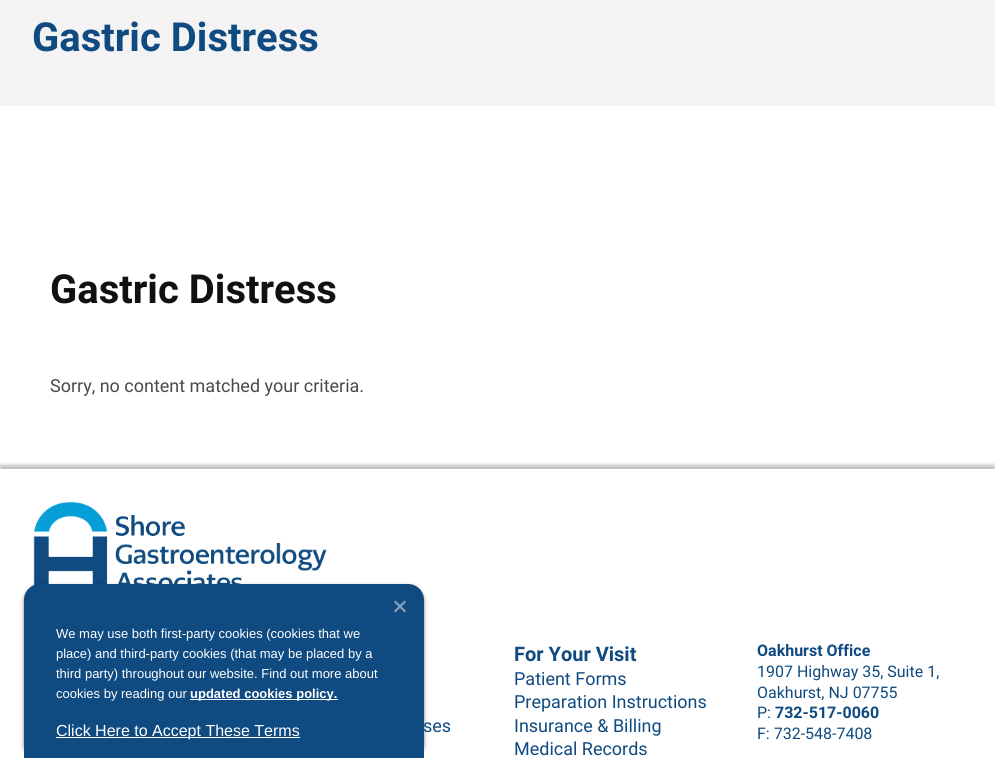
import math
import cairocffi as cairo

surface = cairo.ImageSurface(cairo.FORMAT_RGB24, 995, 758)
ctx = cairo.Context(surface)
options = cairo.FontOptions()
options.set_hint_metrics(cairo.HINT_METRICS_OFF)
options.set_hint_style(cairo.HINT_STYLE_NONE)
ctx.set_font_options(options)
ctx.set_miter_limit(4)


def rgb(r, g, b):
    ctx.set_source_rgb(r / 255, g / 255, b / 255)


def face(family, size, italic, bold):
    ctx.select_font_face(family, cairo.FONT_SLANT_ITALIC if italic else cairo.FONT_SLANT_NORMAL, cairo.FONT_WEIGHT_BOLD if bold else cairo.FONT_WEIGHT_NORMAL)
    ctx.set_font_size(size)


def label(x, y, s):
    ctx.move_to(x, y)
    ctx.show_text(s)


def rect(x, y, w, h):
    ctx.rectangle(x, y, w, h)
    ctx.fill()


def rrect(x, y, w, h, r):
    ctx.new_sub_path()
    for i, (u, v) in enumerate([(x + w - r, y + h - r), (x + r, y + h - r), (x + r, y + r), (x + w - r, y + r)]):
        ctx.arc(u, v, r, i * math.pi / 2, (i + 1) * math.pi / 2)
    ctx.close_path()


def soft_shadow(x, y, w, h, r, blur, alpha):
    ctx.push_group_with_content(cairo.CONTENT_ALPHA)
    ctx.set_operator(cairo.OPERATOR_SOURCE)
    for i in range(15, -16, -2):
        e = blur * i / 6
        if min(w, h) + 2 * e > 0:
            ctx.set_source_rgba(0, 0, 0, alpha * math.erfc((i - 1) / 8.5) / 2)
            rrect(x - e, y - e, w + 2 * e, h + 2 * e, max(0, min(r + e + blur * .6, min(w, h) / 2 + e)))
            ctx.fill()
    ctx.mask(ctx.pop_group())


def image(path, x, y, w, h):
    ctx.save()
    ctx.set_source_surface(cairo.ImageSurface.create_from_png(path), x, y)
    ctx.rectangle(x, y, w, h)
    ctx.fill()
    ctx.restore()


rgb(255, 255, 255)
ctx.paint()
rgb(243, 243, 243)
rect(0, 0, 995, 106)
face('Roboto', 40, 0, 1)
rgb(15, 74, 128)
label(32, 51, 'Gastric Distress')
rgb(17, 17, 17)
label(50, 303, 'Gastric Distress')
face('Roboto', 18, 0, 0)
rgb(74, 74, 74)
label(50, 392, 'Sorry, no content matched your criteria.')
ctx.save()
ctx.rectangle(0, 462, 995, 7)
ctx.clip()
rgb(0, 0, 0)
soft_shadow(0, 465, 995, 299, 0, 2, 0.25)
ctx.restore()
image('image0.png', 33, 502, 294, 84)
rgb(0, 0, 0)
soft_shadow(24, 586, 400, 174, 16, 2, 0.5)
rgb(15, 74, 128)
ctx.new_path()
ctx.move_to(40, 584)
ctx.line_to(408, 584)
ctx.curve_to(417, 584, 424, 591, 424, 600)
ctx.line_to(424, 758)
ctx.line_to(24, 758)
ctx.line_to(24, 600)
ctx.curve_to(24, 591, 31, 584, 40, 584)
ctx.close_path()
ctx.fill()
rgb(135, 165, 192)
ctx.new_path()
ctx.move_to(404.5, 600.5)
ctx.line_to(406, 602)
ctx.line_to(395.5, 612.5)
ctx.line_to(394, 611)
ctx.close_path()
ctx.fill()
ctx.new_path()
ctx.move_to(394, 602)
ctx.line_to(395.5, 600.5)
ctx.line_to(406, 611)
ctx.line_to(404.5, 612.5)
ctx.close_path()
ctx.fill()
face('Liberation Sans', 13, 0, 0)
rgb(255, 255, 255)
label(56, 638, 'We may use both first-party cookies (cookies that we')
label(56, 658, 'place) and third-party cookies (that may be placed by a')
label(56, 678, 'third party) throughout our website. Find out more about')
label(56, 698, 'cookies by reading our')
rect(190, 699, 148, 1)
face('Liberation Sans', 13, 0, 1)
label(190, 698, 'updated cookies policy.')
rect(56, 737, 244, 1)
face('Liberation Sans', 16, 0, 0)
label(56, 736, 'Click Here to Accept These Terms')
face('Roboto', 18, 0, 0)
rgb(15, 74, 128)
label(423, 732, 'ses')
face('Roboto', 20, 0, 1)
label(514, 661, 'For Your Visit')
face('Roboto', 18, 0, 0)
label(514, 685, 'Patient Forms')
label(514, 708, 'Preparation Instructions')
label(514, 732, 'Insurance & Billing')
label(514, 755, 'Medical Records')
face('Roboto', 16, 0, 1)
label(757, 656, 'Oakhurst Office')
face('Roboto', 16, 0, 0)
label(757, 677, '1907 Highway 35, Suite 1,')
label(757, 698, 'Oakhurst, NJ 07755')
label(757, 718, 'P:')
face('Roboto', 16, 0, 1)
label(775, 718, '732-517-0060')
face('Roboto', 16, 0, 0)
label(757, 739, 'F: 732-548-7408')
surface.write_to_png('render.png')
